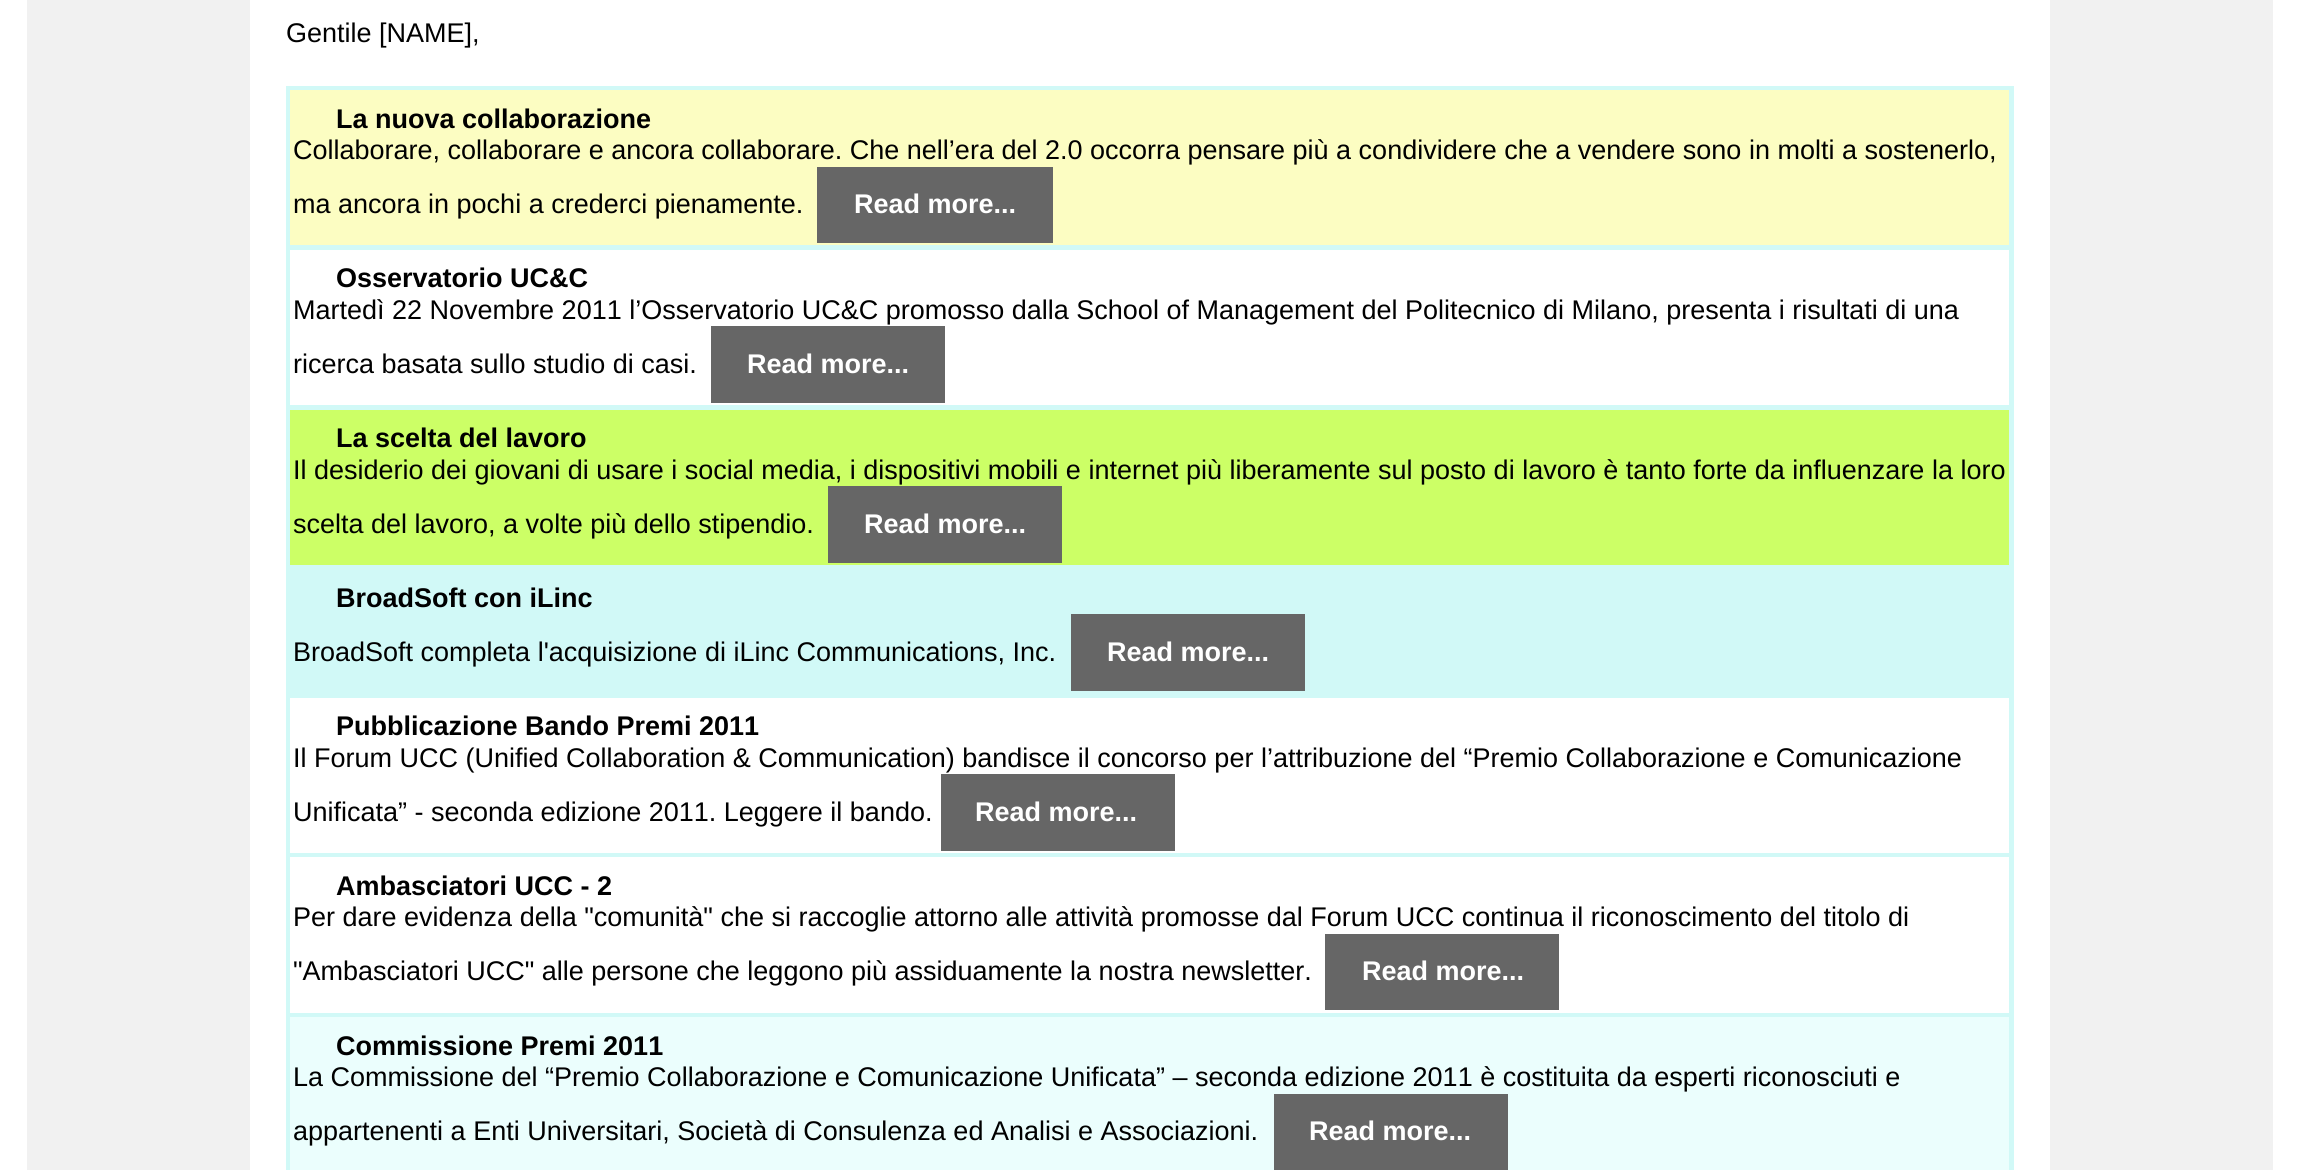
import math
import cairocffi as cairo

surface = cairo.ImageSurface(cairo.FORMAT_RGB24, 2299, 1170)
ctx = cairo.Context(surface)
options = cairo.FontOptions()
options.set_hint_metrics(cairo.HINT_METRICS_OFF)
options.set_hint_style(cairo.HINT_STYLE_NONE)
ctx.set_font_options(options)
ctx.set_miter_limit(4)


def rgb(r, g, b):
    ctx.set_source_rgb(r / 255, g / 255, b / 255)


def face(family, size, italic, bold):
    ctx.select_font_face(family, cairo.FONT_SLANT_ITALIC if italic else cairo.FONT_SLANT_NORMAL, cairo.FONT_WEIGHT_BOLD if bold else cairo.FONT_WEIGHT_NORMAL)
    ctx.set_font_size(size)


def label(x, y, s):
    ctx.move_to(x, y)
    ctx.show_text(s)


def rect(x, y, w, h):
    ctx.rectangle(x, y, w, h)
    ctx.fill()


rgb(255, 255, 255)
ctx.paint()
rgb(241, 241, 241)
rect(27, 0, 2246, 1170)
rgb(255, 255, 255)
rect(250, 0, 36, 1170)
rect(286, 0, 1728, 86)
face('Liberation Sans', 27, 0, 0)
rgb(0, 0, 0)
label(286, 42, 'Gentile [NAME],')
rgb(209, 249, 247)
rect(286, 86, 1728, 1084)
rgb(252, 253, 194)
rect(290, 90, 1719, 155)
face('Liberation Sans', 27, 0, 1)
rgb(0, 0, 0)
label(336, 128, 'La nuova collaborazione')
face('Liberation Sans', 27, 0, 0)
label(293, 159, 'Collaborare, collaborare e ancora collaborare. Che nell’era del 2.0 occorra pensare più a condividere che a vendere sono in molti a sostenerlo,')
label(293, 213, 'ma ancora in pochi a crederci pienamente.')
rgb(102, 102, 102)
rect(817, 167, 236, 76)
face('Liberation Sans', 27, 0, 1)
rgb(255, 255, 255)
label(854, 213, 'Read more...')
rect(290, 250, 1719, 155)
rgb(0, 0, 0)
label(336, 287, 'Osservatorio UC&C')
face('Liberation Sans', 27, 0, 0)
label(293, 319, 'Martedì 22 Novembre 2011 l’Osservatorio UC&C promosso dalla School of Management del Politecnico di Milano, presenta i risultati di una')
label(293, 373, 'ricerca basata sullo studio di casi.')
rgb(102, 102, 102)
rect(711, 326, 234, 77)
face('Liberation Sans', 27, 0, 1)
rgb(255, 255, 255)
label(747, 373, 'Read more...')
rgb(204, 255, 102)
rect(290, 410, 1719, 155)
rgb(0, 0, 0)
label(336, 447, 'La scelta del lavoro')
face('Liberation Sans', 27, 0, 0)
label(293, 479, 'Il desiderio dei giovani di usare i social media, i dispositivi mobili e internet più liberamente sul posto di lavoro è tanto forte da influenzare la loro')
label(293, 533, 'scelta del lavoro, a volte più dello stipendio.')
rgb(102, 102, 102)
rect(828, 486, 234, 77)
face('Liberation Sans', 27, 0, 1)
rgb(255, 255, 255)
label(864, 533, 'Read more...')
rgb(0, 0, 0)
label(336, 607, 'BroadSoft con iLinc')
face('Liberation Sans', 27, 0, 0)
label(293, 661, 'BroadSoft completa l\'acquisizione di iLinc Communications, Inc.')
rgb(102, 102, 102)
rect(1071, 614, 234, 77)
face('Liberation Sans', 27, 0, 1)
rgb(255, 255, 255)
label(1107, 661, 'Read more...')
rect(290, 698, 1719, 155)
rgb(0, 0, 0)
label(336, 735, 'Pubblicazione Bando Premi 2011')
face('Liberation Sans', 27, 0, 0)
label(293, 767, 'Il Forum UCC (Unified Collaboration & Communication) bandisce il concorso per l’attribuzione del “Premio Collaborazione e Comunicazione')
label(293, 821, 'Unificata” - seconda edizione 2011. Leggere il bando.')
rgb(102, 102, 102)
rect(941, 774, 234, 77)
face('Liberation Sans', 27, 0, 1)
rgb(255, 255, 255)
label(975, 821, 'Read more...')
rect(290, 857, 1719, 156)
rgb(0, 0, 0)
label(336, 895, 'Ambasciatori UCC - 2')
face('Liberation Sans', 27, 0, 0)
label(293, 926, 'Per dare evidenza della "comunità" che si raccoglie attorno alle attività promosse dal Forum UCC continua il riconoscimento del titolo di')
label(293, 980, '"Ambasciatori UCC" alle persone che leggono più assiduamente la nostra newsletter.')
rgb(102, 102, 102)
rect(1325, 934, 234, 76)
face('Liberation Sans', 27, 0, 1)
rgb(255, 255, 255)
label(1362, 980, 'Read more...')
rgb(235, 254, 253)
rect(290, 1017, 1719, 153)
rgb(0, 0, 0)
label(336, 1055, 'Commissione Premi 2011')
face('Liberation Sans', 27, 0, 0)
label(293, 1086, 'La Commissione del “Premio Collaborazione e Comunicazione Unificata” – seconda edizione 2011 è costituita da esperti riconosciuti e')
label(293, 1140, 'appartenenti a Enti Universitari, Società di Consulenza ed Analisi e Associazioni.')
rgb(102, 102, 102)
rect(1274, 1094, 234, 76)
face('Liberation Sans', 27, 0, 1)
rgb(255, 255, 255)
label(1309, 1140, 'Read more...')
rect(2014, 0, 36, 1170)
surface.write_to_png('render.png')
